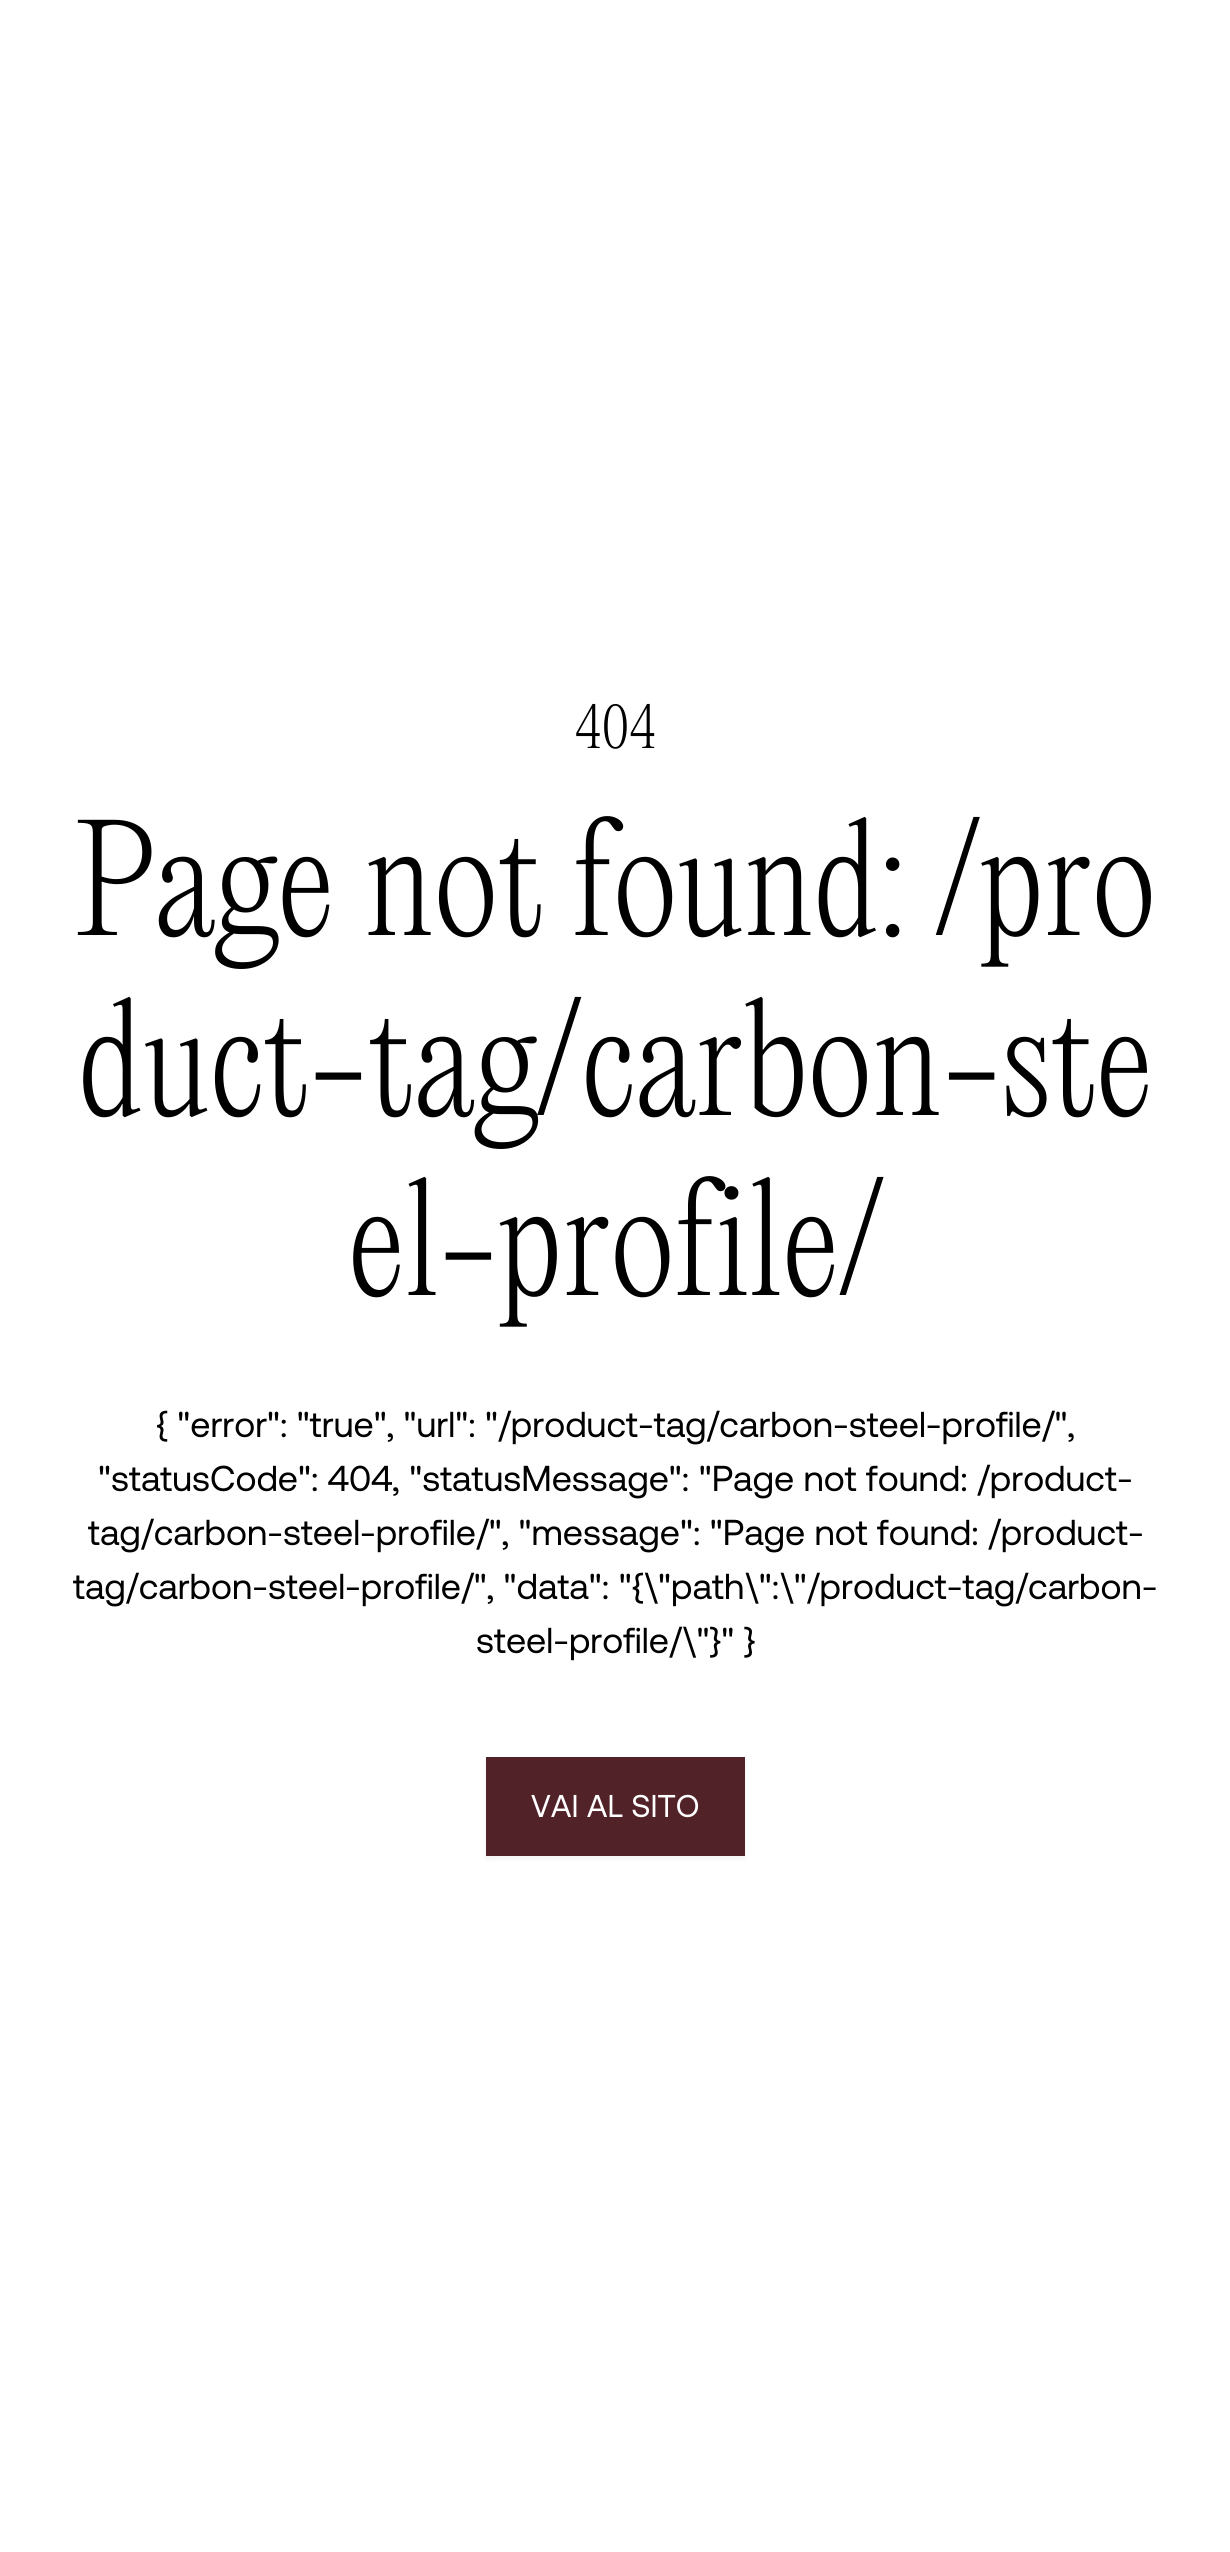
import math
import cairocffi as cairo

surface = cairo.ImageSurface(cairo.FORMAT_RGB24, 1230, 2552)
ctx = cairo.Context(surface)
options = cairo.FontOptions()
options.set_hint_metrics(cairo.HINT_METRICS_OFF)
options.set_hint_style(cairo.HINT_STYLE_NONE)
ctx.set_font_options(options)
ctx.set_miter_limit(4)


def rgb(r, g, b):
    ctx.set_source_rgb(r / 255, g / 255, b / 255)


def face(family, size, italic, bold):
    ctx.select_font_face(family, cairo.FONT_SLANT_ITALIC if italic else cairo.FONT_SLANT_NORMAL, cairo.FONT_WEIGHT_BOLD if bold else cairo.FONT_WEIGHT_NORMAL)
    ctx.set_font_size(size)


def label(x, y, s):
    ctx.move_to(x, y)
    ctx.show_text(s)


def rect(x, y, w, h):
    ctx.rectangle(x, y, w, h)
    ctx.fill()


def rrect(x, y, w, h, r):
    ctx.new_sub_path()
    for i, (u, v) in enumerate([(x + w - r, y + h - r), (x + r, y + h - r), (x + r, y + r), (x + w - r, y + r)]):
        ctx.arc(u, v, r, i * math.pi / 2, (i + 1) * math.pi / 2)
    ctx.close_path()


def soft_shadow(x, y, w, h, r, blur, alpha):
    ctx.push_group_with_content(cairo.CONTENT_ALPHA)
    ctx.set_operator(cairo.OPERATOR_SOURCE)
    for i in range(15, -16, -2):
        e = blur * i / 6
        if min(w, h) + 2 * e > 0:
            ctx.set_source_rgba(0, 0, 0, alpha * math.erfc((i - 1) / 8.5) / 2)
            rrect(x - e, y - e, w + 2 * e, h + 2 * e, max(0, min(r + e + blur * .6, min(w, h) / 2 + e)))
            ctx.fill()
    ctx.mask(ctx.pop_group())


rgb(255, 255, 255)
ctx.paint()
face('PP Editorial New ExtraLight', 54, 0, 0)
rgb(0, 0, 0)
label(575, 748, '404')
face('PP Editorial New ExtraLight', 144, 0, 0)
label(75, 935, 'Page not found: /pro')
label(78, 1115, 'duct-tag/carbon-ste')
label(348, 1295, 'el-profile/')
face('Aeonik', 36, 0, 0)
label(156, 1437, '{ "error": "true", "url": "/product-tag/carbon-steel-profile/",')
label(98, 1491, '"statusCode": 404, "statusMessage": "Page not found: /product-')
label(88, 1545, 'tag/carbon-steel-profile/", "message": "Page not found: /product-')
label(73, 1599, 'tag/carbon-steel-profile/", "data": "{\\"path\\":\\"/product-tag/carbon-')
label(476, 1653, 'steel-profile/\\"}" }')
rgb(0, 0, 0)
soft_shadow(486, 1760, 259, 99, 0, 2, 0.05)
rgb(81, 34, 39)
rect(486, 1757, 259, 99)
face('Aeonik', 31.5, 0, 0)
rgb(255, 255, 255)
label(531, 1817, 'VAI AL SITO')
surface.write_to_png('render.png')
